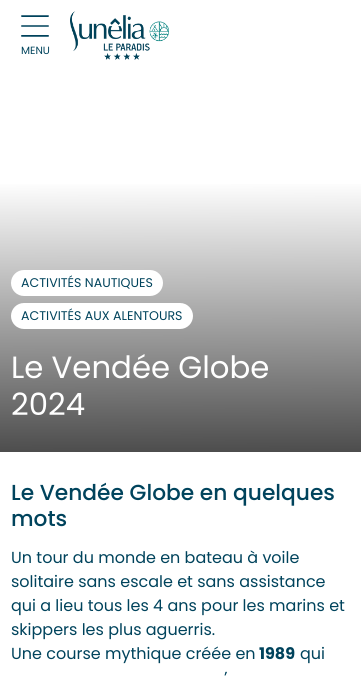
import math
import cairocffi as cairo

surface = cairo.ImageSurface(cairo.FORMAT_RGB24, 361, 676)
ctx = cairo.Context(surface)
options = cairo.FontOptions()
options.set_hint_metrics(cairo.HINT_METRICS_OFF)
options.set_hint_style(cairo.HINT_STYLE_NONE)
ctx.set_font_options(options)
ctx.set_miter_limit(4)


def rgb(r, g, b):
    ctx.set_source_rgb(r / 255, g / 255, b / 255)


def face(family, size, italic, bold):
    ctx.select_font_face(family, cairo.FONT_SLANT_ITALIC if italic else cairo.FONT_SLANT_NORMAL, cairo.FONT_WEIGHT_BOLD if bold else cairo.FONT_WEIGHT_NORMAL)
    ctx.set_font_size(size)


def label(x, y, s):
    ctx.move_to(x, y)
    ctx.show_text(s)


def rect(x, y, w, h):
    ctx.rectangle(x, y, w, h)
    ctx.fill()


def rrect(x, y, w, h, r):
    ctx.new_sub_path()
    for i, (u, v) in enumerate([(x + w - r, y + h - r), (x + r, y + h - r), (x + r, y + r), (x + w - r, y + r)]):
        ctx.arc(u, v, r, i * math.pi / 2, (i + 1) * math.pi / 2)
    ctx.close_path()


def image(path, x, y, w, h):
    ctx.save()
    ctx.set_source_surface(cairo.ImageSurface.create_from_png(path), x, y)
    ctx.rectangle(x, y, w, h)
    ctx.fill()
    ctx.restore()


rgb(255, 255, 255)
ctx.paint()
image('image0.png', 21, 15, 28, 22)
face('Poppins', 10.5, 0, 0)
rgb(0, 67, 92)
label(21, 54, 'MENU')
image('image1.png', 70, 11, 99, 49)
gradient = cairo.LinearGradient(180, 0, 181, 452)
gradient.add_color_stop_rgba(0.4, 1, 1, 1, 1)
gradient.add_color_stop_rgba(1, 0.302, 0.302, 0.302, 1)
ctx.set_source(gradient)
rect(0, 184, 361, 268)
rgb(255, 255, 255)
rrect(11, 270, 152, 26, 13)
ctx.fill()
face('Poppins', 12.6, 0, 0)
rgb(0, 67, 92)
label(21, 287, 'ACTIVITÉS NAUTIQUES')
rgb(255, 255, 255)
rrect(11, 303, 182, 26, 13)
ctx.fill()
rgb(0, 67, 92)
label(21, 320, 'ACTIVITÉS AUX ALENTOURS')
face('Poppins', 30.75, 0, 0)
rgb(255, 255, 255)
label(11, 378, 'Le Vendée Globe')
label(11, 415, '2024')
face('Poppins Medium', 21.75, 0, 0)
rgb(0, 67, 92)
label(11, 500, 'Le Vendée Globe en quelques')
label(11, 526, 'mots')
face('Poppins', 16, 0, 0)
label(11, 563, 'Un tour du monde en bateau à voile')
label(11, 587, 'solitaire sans escale et sans assistance')
label(11, 611, 'qui a lieu tous les 4 ans pour les marins et')
label(11, 635, 'skippers les plus aguerris.')
label(11, 659, 'Une course mythique créée en')
face('Poppins', 16, 0, 1)
label(259, 659, '1989')
face('Poppins', 16, 0, 0)
label(300, 659, 'qui')
label(224, 683, '’')
surface.write_to_png('render.png')
